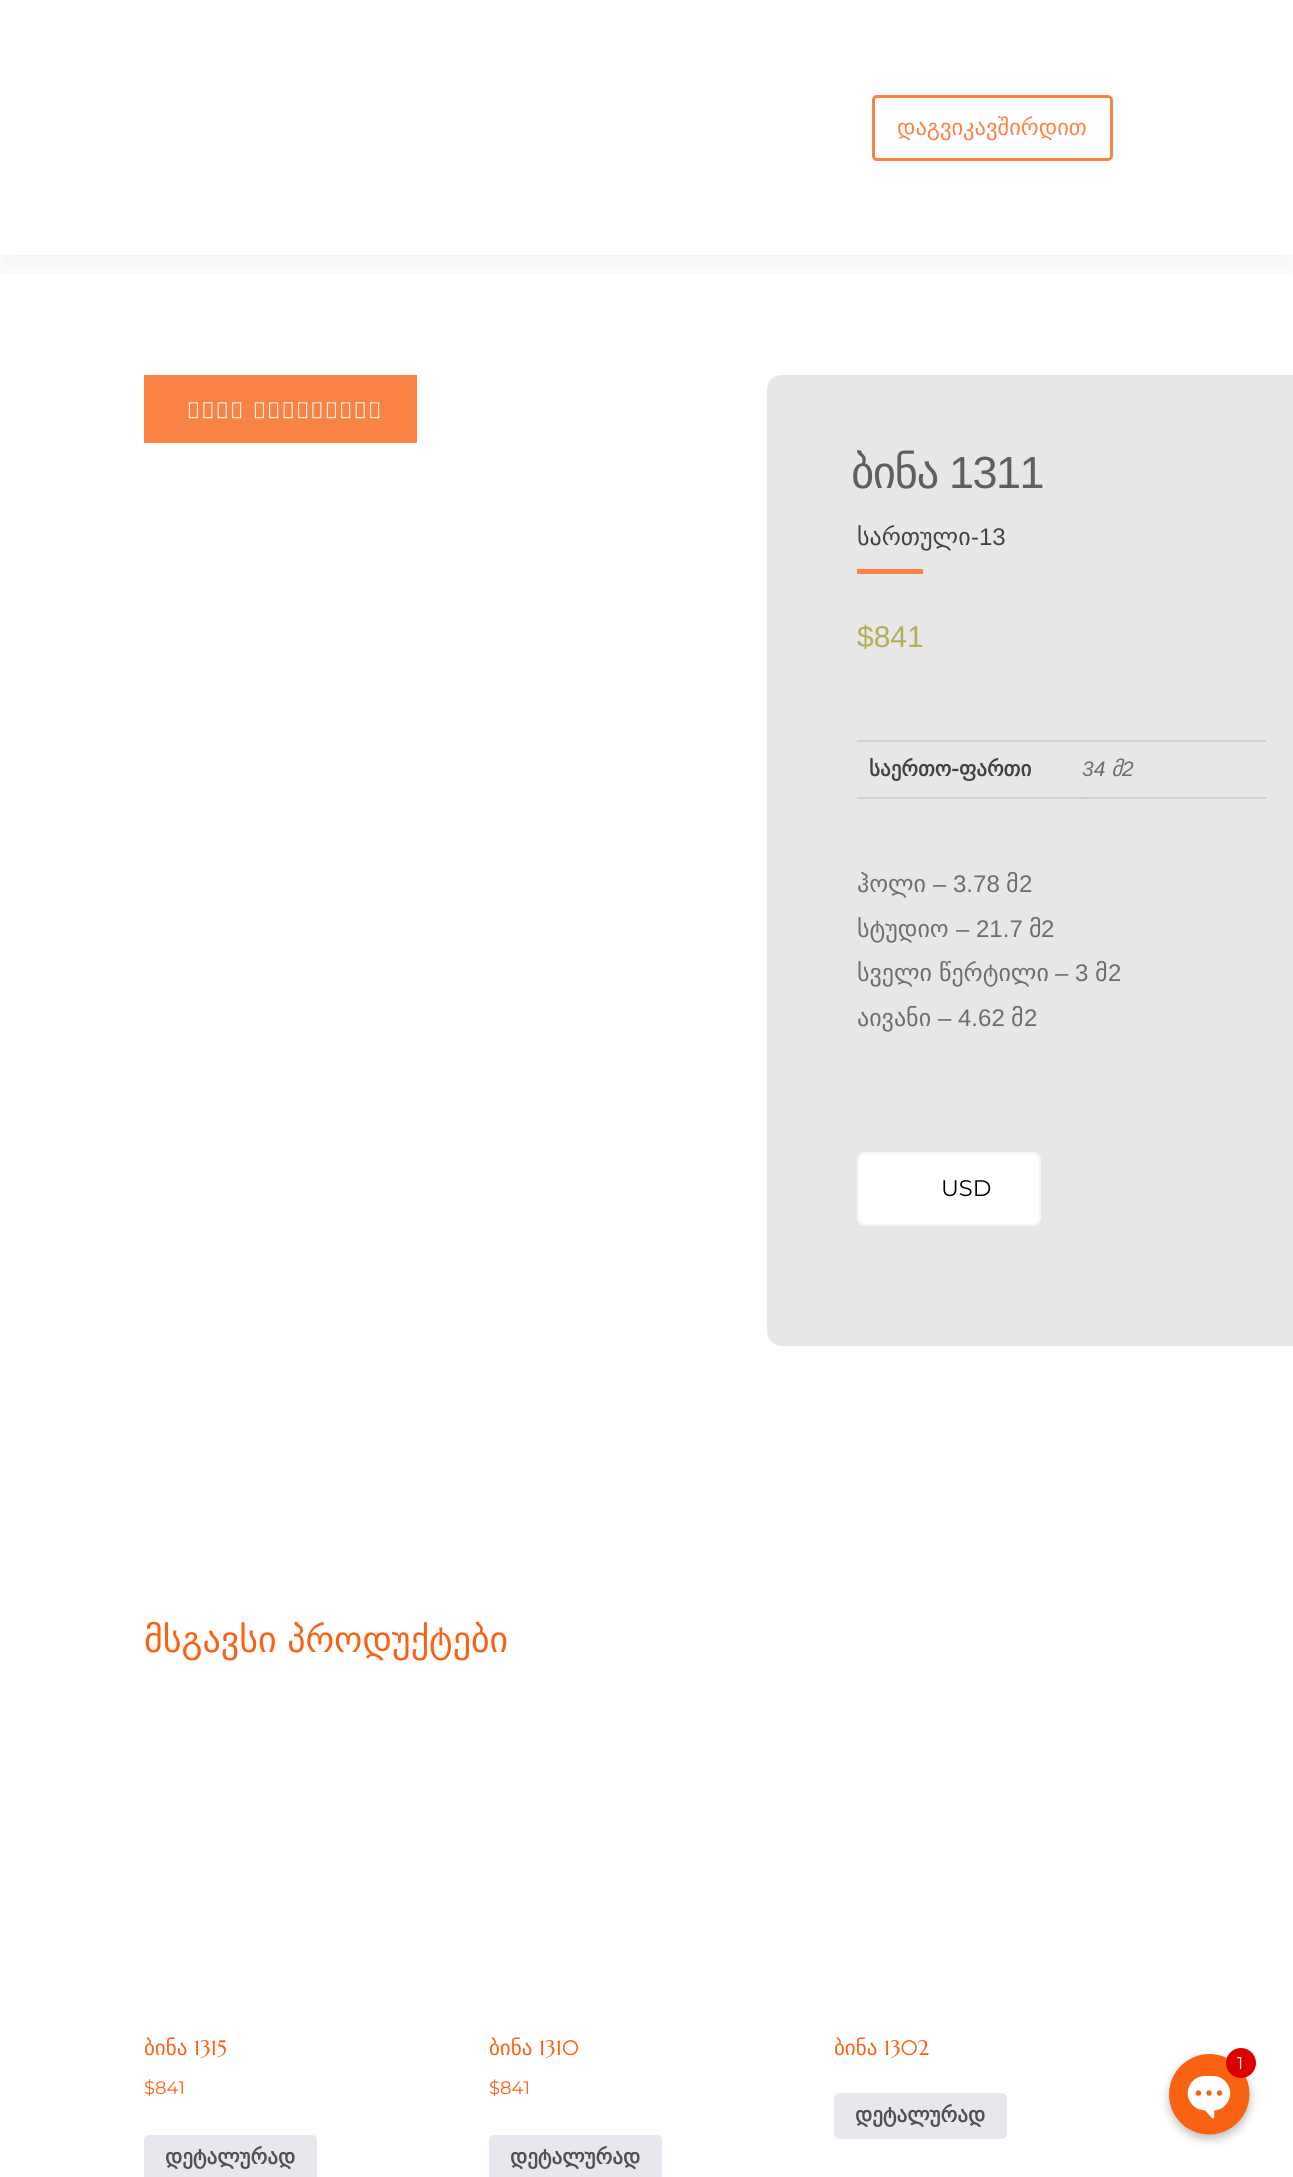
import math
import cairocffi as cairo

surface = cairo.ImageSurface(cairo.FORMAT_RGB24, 1293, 2177)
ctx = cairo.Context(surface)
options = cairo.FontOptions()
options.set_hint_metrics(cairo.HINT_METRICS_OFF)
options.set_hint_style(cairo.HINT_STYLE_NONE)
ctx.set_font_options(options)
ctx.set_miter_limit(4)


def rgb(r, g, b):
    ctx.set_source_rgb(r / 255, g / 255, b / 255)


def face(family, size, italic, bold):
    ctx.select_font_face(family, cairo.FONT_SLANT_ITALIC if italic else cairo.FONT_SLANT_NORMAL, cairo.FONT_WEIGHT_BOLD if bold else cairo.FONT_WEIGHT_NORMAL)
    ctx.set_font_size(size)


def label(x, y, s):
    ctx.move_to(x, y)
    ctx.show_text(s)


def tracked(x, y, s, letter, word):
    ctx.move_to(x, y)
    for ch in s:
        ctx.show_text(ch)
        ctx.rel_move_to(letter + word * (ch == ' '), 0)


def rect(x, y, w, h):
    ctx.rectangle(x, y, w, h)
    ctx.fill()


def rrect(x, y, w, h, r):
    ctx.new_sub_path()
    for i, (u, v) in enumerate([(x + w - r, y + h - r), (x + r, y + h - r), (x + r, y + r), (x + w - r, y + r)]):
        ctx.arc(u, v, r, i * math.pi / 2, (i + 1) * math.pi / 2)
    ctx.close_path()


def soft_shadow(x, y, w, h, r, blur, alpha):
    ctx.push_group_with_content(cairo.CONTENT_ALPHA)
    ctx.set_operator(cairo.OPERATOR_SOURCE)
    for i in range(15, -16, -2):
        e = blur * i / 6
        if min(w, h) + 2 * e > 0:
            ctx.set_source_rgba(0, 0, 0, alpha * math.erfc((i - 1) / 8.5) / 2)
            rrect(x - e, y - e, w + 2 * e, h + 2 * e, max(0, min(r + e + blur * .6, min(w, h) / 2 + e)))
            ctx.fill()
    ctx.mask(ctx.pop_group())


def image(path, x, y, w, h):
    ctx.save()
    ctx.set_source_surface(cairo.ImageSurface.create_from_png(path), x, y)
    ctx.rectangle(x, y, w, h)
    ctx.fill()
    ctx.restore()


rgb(255, 255, 255)
ctx.paint()
ctx.save()
ctx.rectangle(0, 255, 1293, 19)
ctx.clip()
rgb(0, 0, 0)
soft_shadow(0, 15, 1293, 255, 0, 15, 0.05)
ctx.restore()
rrect(873.5, 96.5, 238, 63, 3.5)
rgb(249, 131, 69)
ctx.set_line_width(3)
ctx.stroke()
face('DejaVu Sans', 22.5, 0, 0)
label(897, 135, 'დაგვიკავშირდით')
rect(144, 375, 273, 68)
face('DejaVu Sans', 18, 0, 0)
rgb(255, 255, 255)
tracked(188, 415, 'ᲣᲙᲐᲜ ᲓᲐᲑᲠᲣᲜᲔᲑᲐ', 3.6, -1)
rgb(231, 231, 231)
ctx.new_path()
ctx.move_to(782, 375)
ctx.line_to(1293, 375)
ctx.line_to(1293, 1346)
ctx.line_to(782, 1346)
ctx.curve_to(773.5, 1346, 767, 1339.5, 767, 1331)
ctx.line_to(767, 390)
ctx.curve_to(767, 381.5, 773.5, 375, 782, 375)
ctx.close_path()
ctx.fill()
rgb(208, 208, 208)
rect(857, 797, 409, 2)
face('DejaVu Sans', 45, 0, 0)
rgb(95, 95, 95)
tracked(851, 488, 'ბინა', -1.5, 0)
face('Liberation Sans', 45, 0, 0)
tracked(949, 488, '1311', -1.5, 0)
face('DejaVu Sans', 24, 0, 0)
rgb(63, 68, 72)
label(857, 545, 'სართული')
face('Liberation Sans', 24, 0, 0)
label(971, 545, '-13')
rgb(249, 131, 69)
rect(857, 569, 66, 5)
face('Liberation Sans', 30, 0, 0)
rgb(179, 175, 84)
label(857, 647, '$841')
rgb(208, 208, 208)
rect(857, 740, 409, 2)
face('DejaVu Sans', 21, 0, 1)
rgb(63, 68, 72)
label(869, 776, 'საერთო-ფართი')
rgb(187, 187, 187)
rect(1082, 797, 1, 2)
face('Liberation Sans', 21, 1, 0)
rgb(109, 110, 112)
label(1082, 776, '34')
face('DejaVu Sans', 21, 1, 0)
label(1111, 776, 'მ')
face('Liberation Sans', 21, 1, 0)
label(1122, 776, '2')
face('DejaVu Sans', 24, 0, 0)
label(857, 892, 'ჰოლი')
face('Liberation Sans', 24, 0, 0)
label(933, 892, '– 3.78')
face('DejaVu Sans', 24, 0, 0)
label(1006, 892, 'მ')
face('Liberation Sans', 24, 0, 0)
label(1019, 892, '2')
face('DejaVu Sans', 24, 0, 0)
label(857, 937, 'სტუდიო')
face('Liberation Sans', 24, 0, 0)
label(956, 937, '– 21.7')
face('DejaVu Sans', 24, 0, 0)
label(1029, 937, 'მ')
face('Liberation Sans', 24, 0, 0)
label(1041, 937, '2')
face('DejaVu Sans', 24, 0, 0)
label(857, 981, 'სველი')
label(939, 981, 'წერტილი')
face('Liberation Sans', 24, 0, 0)
label(1055, 981, '– 3')
face('DejaVu Sans', 24, 0, 0)
label(1095, 981, 'მ')
face('Liberation Sans', 24, 0, 0)
label(1108, 981, '2')
face('DejaVu Sans', 24, 0, 0)
label(857, 1026, 'აივანი')
face('Liberation Sans', 24, 0, 0)
label(938, 1026, '– 4.62')
face('DejaVu Sans', 24, 0, 0)
label(1011, 1026, 'მ')
face('Liberation Sans', 24, 0, 0)
label(1024, 1026, '2')
rgb(255, 255, 255)
rrect(858, 1153, 182, 72, 7)
ctx.fill_preserve()
rgb(247, 247, 247)
ctx.set_line_width(2)
ctx.stroke()
face('Montserrat', 22.5, 0, 0)
rgb(0, 0, 0)
label(941, 1196, 'USD')
face('DejaVu Sans', 36, 0, 0)
rgb(248, 98, 18)
tracked(144, 1652, 'მსგავსი პროდუქტები', 0, -1)
face('DejaVu Sans', 21, 0, 0)
label(144, 2055, 'ბინა')
face('Marcellus SC', 21, 0, 0)
label(194, 2055, '1315')
face('Montserrat', 18, 0, 0)
label(144, 2094, '$841')
rgb(233, 230, 237)
rrect(144, 2135, 173, 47, 5)
ctx.fill()
face('DejaVu Sans', 21, 0, 1)
rgb(81, 81, 81)
label(165, 2164, 'დეტალურად')
face('DejaVu Sans', 21, 0, 0)
rgb(248, 98, 18)
label(489, 2055, 'ბინა')
face('Marcellus SC', 21, 0, 0)
label(539, 2055, '1310')
face('Montserrat', 18, 0, 0)
label(489, 2094, '$841')
rgb(233, 230, 237)
rrect(489, 2135, 173, 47, 5)
ctx.fill()
face('DejaVu Sans', 21, 0, 1)
rgb(81, 81, 81)
label(510, 2164, 'დეტალურად')
face('DejaVu Sans', 21, 0, 0)
rgb(248, 98, 18)
label(834, 2055, 'ბინა')
face('Marcellus SC', 21, 0, 0)
label(884, 2055, '1302')
rgb(233, 230, 237)
rrect(834, 2093, 173, 46, 5)
ctx.fill()
face('DejaVu Sans', 21, 0, 1)
rgb(81, 81, 81)
label(855, 2122, 'დეტალურად')
rgb(0, 0, 0)
soft_shadow(1169, 2058, 81, 81, 40.5, 4.5, 0.25)
image('image0.png', 1169, 2054, 81, 81)
rgb(221, 0, 0)
ctx.arc(1241, 2063, 15, 0, 2 * math.pi)
ctx.fill()
face('Montserrat', 17, 0, 0)
rgb(255, 255, 255)
label(1237, 2069, '1')
surface.write_to_png('render.png')
